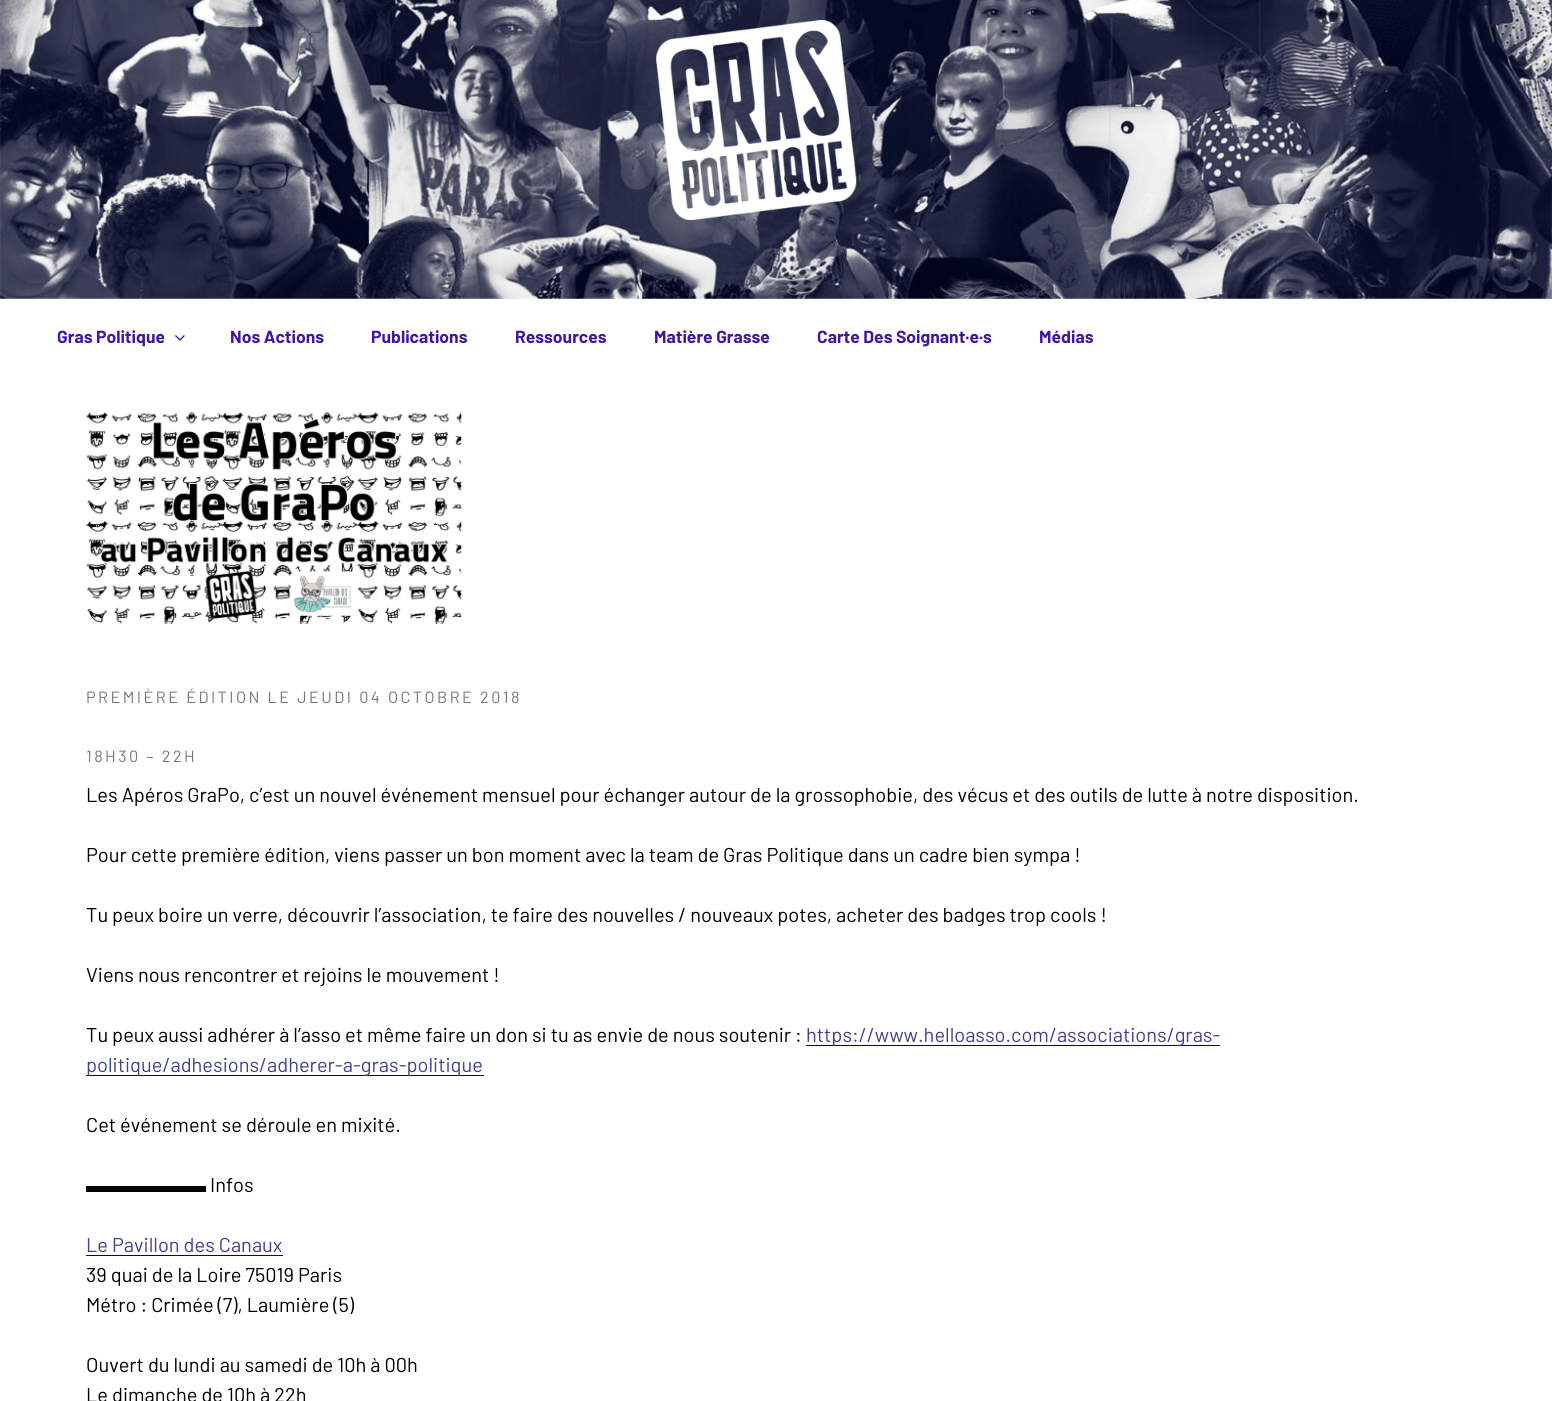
import math
import cairocffi as cairo

surface = cairo.ImageSurface(cairo.FORMAT_RGB24, 1552, 1401)
ctx = cairo.Context(surface)
options = cairo.FontOptions()
options.set_hint_metrics(cairo.HINT_METRICS_OFF)
options.set_hint_style(cairo.HINT_STYLE_NONE)
ctx.set_font_options(options)
ctx.set_miter_limit(4)


def rgb(r, g, b):
    ctx.set_source_rgb(r / 255, g / 255, b / 255)


def face(family, size, italic, bold):
    ctx.select_font_face(family, cairo.FONT_SLANT_ITALIC if italic else cairo.FONT_SLANT_NORMAL, cairo.FONT_WEIGHT_BOLD if bold else cairo.FONT_WEIGHT_NORMAL)
    ctx.set_font_size(size)


def label(x, y, s):
    ctx.move_to(x, y)
    ctx.show_text(s)


def tracked(x, y, s, letter, word):
    ctx.move_to(x, y)
    for ch in s:
        ctx.show_text(ch)
        ctx.rel_move_to(letter + word * (ch == ' '), 0)


def rect(x, y, w, h):
    ctx.rectangle(x, y, w, h)
    ctx.fill()


def image(path, x, y, w, h):
    ctx.save()
    ctx.set_source_surface(cairo.ImageSurface.create_from_png(path), x, y)
    ctx.rectangle(x, y, w, h)
    ctx.fill()
    ctx.restore()


rgb(250, 250, 250)
ctx.paint()
image('image0.png', 0, 0, 1552, 299)
image('image1.png', 656, 20, 201, 200)
rgb(255, 255, 255)
rect(0, 300, 1552, 1101)
face('Barlow', 17.5, 0, 1)
rgb(66, 22, 160)
label(57, 343, 'Gras Politique')
image('image2.png', 175, 335, 10, 6)
label(230, 343, 'Nos Actions')
label(371, 343, 'Publications')
label(515, 343, 'Ressources')
label(654, 343, 'Matière Grasse')
label(817, 343, 'Carte Des Soignant·e·s')
label(1039, 343, 'Médias')
image('image3.png', 86, 412, 376, 212)
face('Barlow', 16.25, 0, 0)
rgb(118, 118, 118)
tracked(86, 703, 'PREMIÈRE ÉDITION LE JEUDI 04 OCTOBRE 2018', 2.45, 0)
tracked(86, 762, '18H30 – 22H', 2.45, 0)
face('Barlow', 20, 0, 0)
rgb(0, 0, 0)
label(86, 802, 'Les Apéros GraPo, c’est un nouvel événement mensuel pour échanger autour de la grossophobie, des vécus et des outils de lutte à notre disposition.')
label(86, 862, 'Pour cette première édition, viens passer un bon moment avec la team de Gras Politique dans un cadre bien sympa !')
label(86, 922, 'Tu peux boire un verre, découvrir l’association, te faire des nouvelles / nouveaux potes, acheter des badges trop cools !')
label(86, 982, 'Viens nous rencontrer et rejoins le mouvement !')
label(86, 1042, 'Tu peux aussi adhérer à l’asso et même faire un don si tu as envie de nous soutenir :')
rgb(15, 15, 15)
rect(806, 1045, 414, 1)
rgb(62, 67, 144)
label(806, 1042, 'https://www.helloasso.com/associations/gras-')
rgb(15, 15, 15)
rect(86, 1075, 398, 1)
rgb(62, 67, 144)
label(86, 1072, 'politique/adhesions/adherer-a-gras-politique')
rgb(0, 0, 0)
label(86, 1132, 'Cet événement se déroule en mixité.')
face('Liberation Sans', 20, 0, 0)
label(86, 1192, '▬▬▬▬▬▬')
face('Barlow', 20, 0, 0)
label(210, 1192, 'Infos')
rgb(62, 67, 144)
label(86, 1252, 'Le Pavillon des Canaux')
rgb(15, 15, 15)
rect(86, 1255, 197, 1)
rgb(0, 0, 0)
label(86, 1282, '39 quai de la Loire 75019 Paris')
label(86, 1312, 'Métro : Crimée (7), Laumière (5)')
label(86, 1372, 'Ouvert du lundi au samedi de 10h à 00h')
label(86, 1402, 'Le dimanche de 10h à 22h')
surface.write_to_png('render.png')
